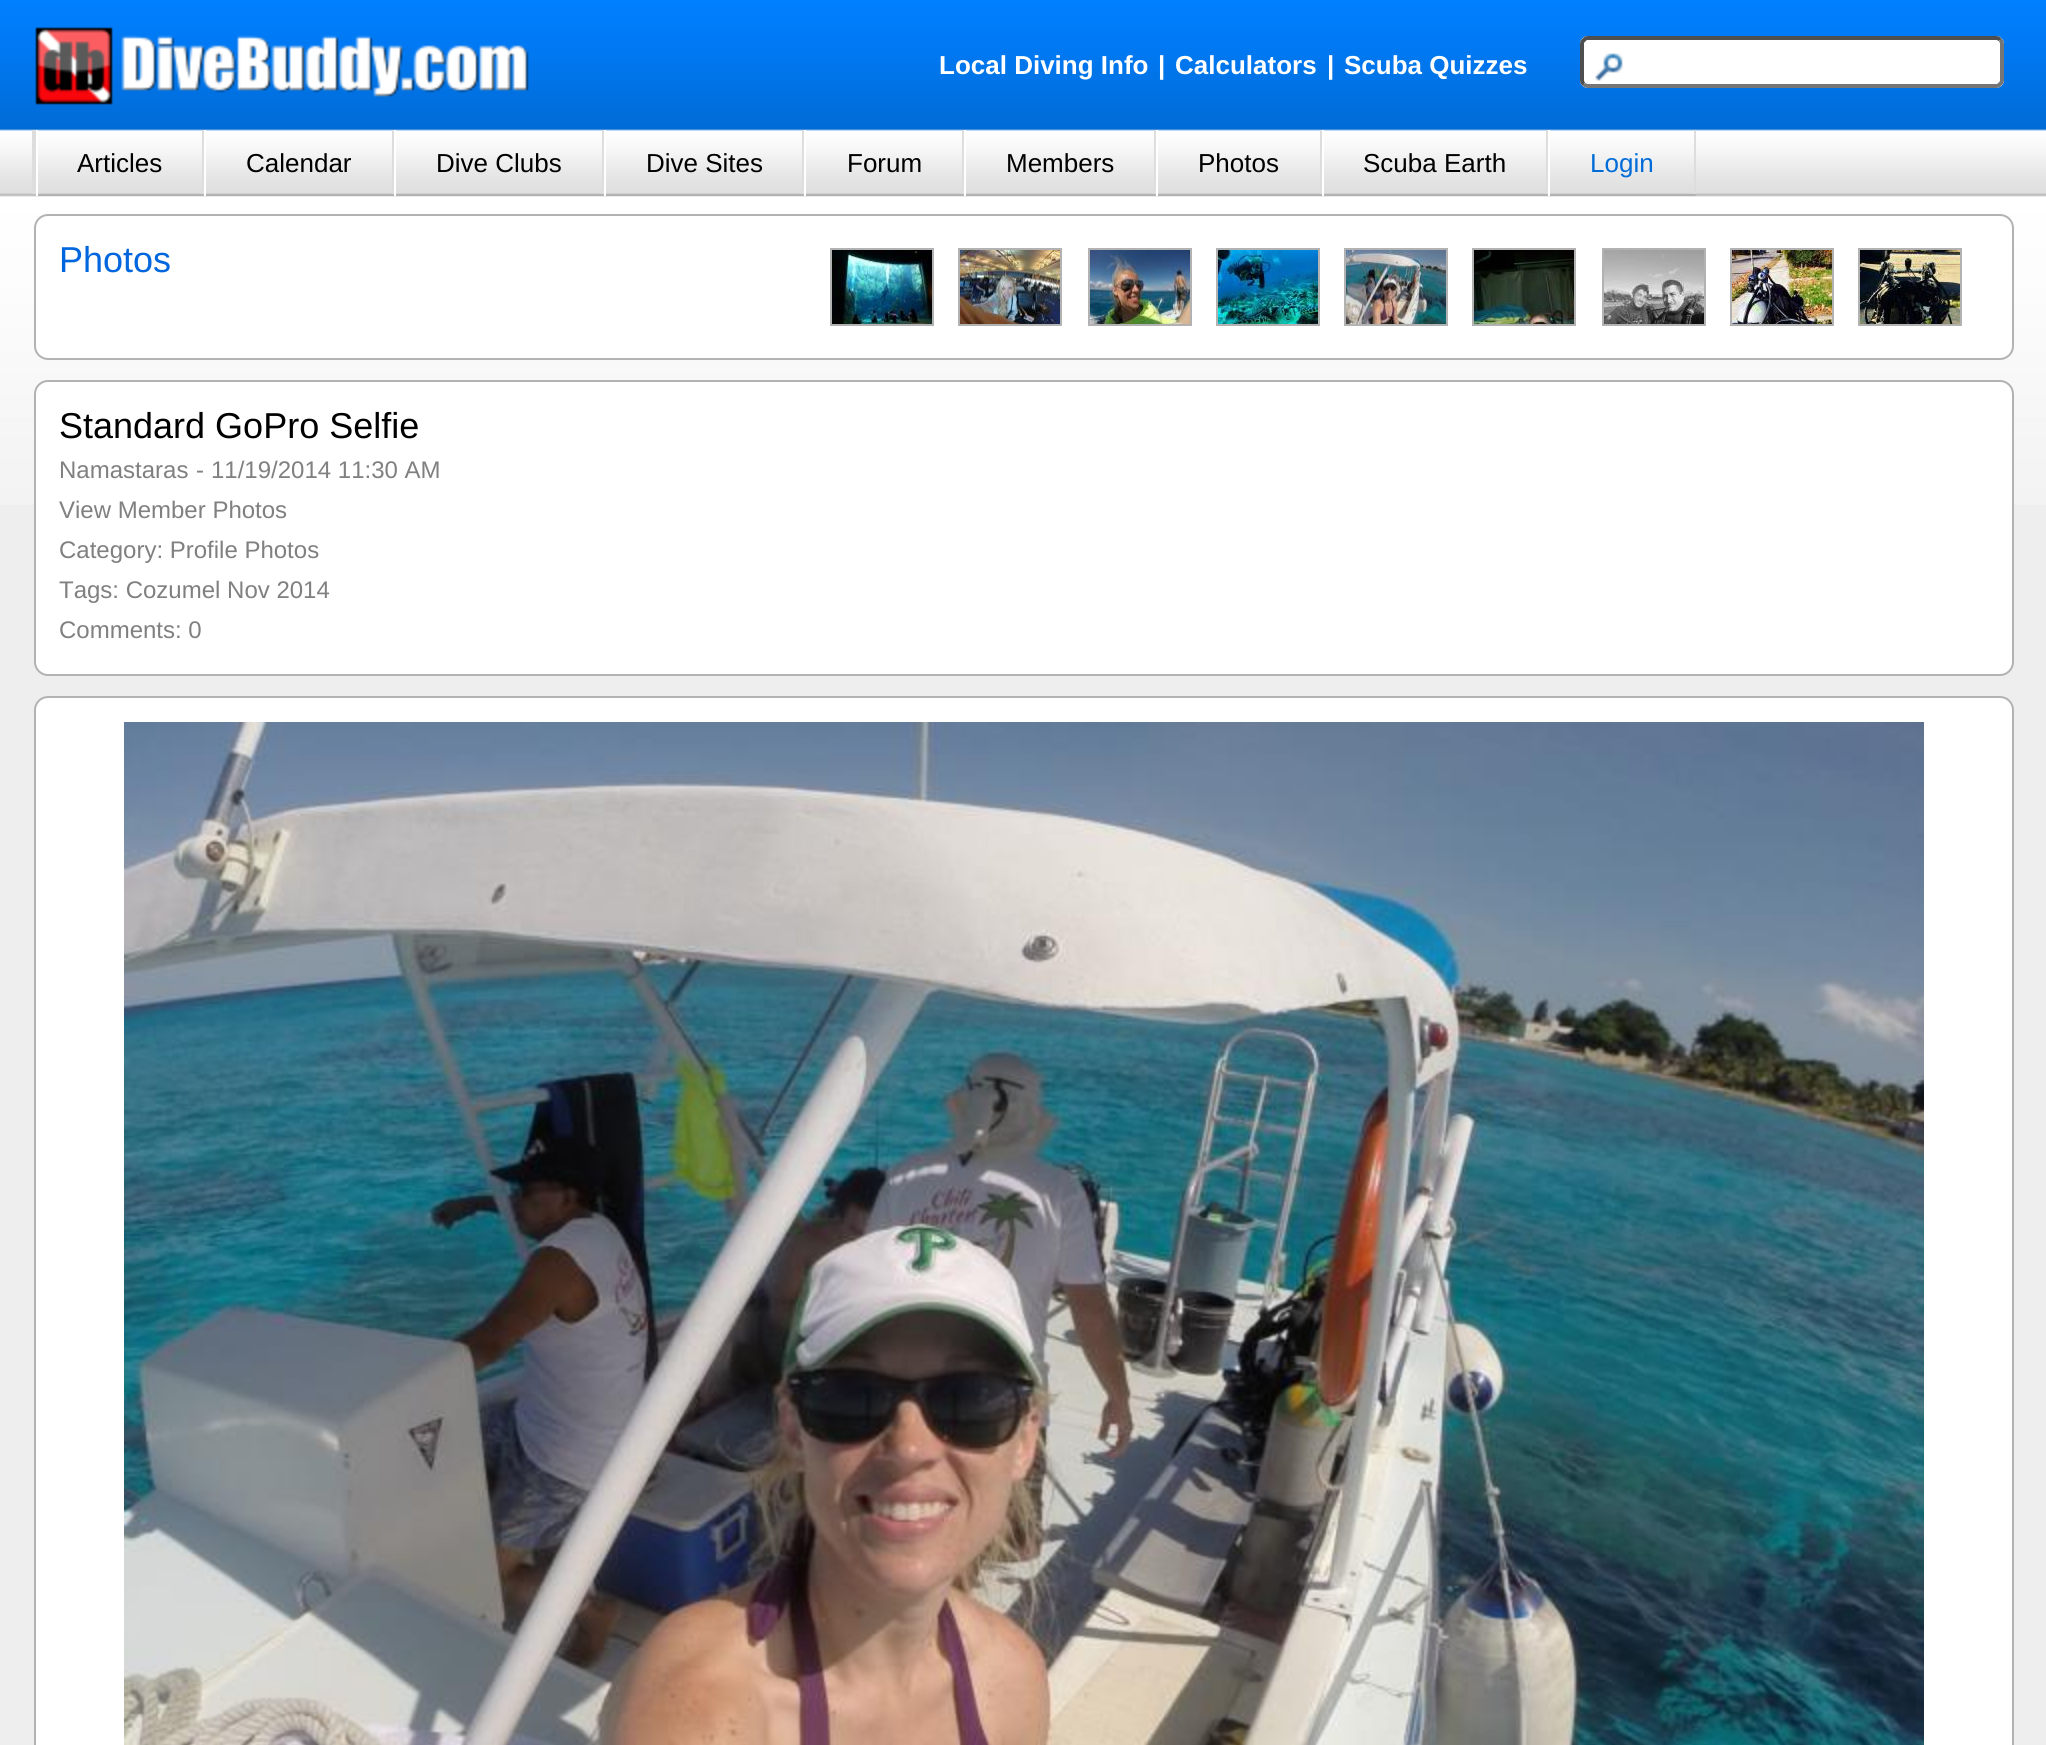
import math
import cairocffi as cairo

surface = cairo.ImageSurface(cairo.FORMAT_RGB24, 2046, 1745)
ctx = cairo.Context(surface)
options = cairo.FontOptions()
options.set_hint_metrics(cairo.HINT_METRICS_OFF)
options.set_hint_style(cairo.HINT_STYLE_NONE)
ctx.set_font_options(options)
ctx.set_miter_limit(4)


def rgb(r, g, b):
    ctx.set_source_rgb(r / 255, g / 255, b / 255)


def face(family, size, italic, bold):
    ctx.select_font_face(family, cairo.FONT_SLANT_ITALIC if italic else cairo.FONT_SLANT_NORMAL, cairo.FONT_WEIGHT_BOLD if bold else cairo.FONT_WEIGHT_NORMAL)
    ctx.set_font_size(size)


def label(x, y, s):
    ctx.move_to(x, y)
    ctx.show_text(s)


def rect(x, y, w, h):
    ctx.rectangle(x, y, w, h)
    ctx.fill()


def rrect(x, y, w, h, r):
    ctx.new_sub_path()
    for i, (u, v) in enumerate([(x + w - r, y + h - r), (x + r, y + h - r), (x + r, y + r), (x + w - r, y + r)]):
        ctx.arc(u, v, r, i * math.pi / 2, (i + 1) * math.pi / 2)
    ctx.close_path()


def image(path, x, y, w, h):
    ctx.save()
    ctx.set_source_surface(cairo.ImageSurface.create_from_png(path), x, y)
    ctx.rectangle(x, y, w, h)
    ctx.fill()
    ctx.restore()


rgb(238, 238, 238)
ctx.paint()
image('image0.png', 0, 0, 2046, 505)
image('image1.png', 35, 27, 494, 78)
face('Liberation Sans', 26, 0, 1)
rgb(255, 255, 255)
label(939, 74, 'Local Diving Info')
label(1158, 74, '|')
label(1175, 74, 'Calculators')
label(1327, 74, '|')
label(1344, 74, 'Scuba Quizzes')
rrect(1580, 36, 424, 52, 8)
ctx.fill()
image('image2.png', 1595, 53, 28, 28)
ctx.new_path()
ctx.move_to(2000, 40)
ctx.curve_to(2001.5, 41, 2002, 42.5, 2002, 44)
ctx.line_to(2002, 80)
ctx.curve_to(2002, 81.5, 2001.5, 83, 2000, 84)
ctx.curve_to(1999, 85.5, 1997.5, 86, 1996, 86)
ctx.line_to(1588, 86)
ctx.curve_to(1586.5, 86, 1585, 85.5, 1584, 84)
rgb(118, 118, 118)
ctx.set_line_width(4)
ctx.stroke()
ctx.new_path()
ctx.move_to(1584, 84)
ctx.curve_to(1582.5, 83, 1582, 81.5, 1582, 80)
ctx.line_to(1582, 44)
ctx.curve_to(1582, 42.5, 1582.5, 41, 1584, 40)
ctx.curve_to(1585, 38.5, 1586.5, 38, 1588, 38)
ctx.line_to(1996, 38)
ctx.curve_to(1997.5, 38, 1999, 38.5, 2000, 40)
rgb(79, 79, 79)
ctx.stroke()
rgb(221, 221, 221)
rect(32, 130, 4, 64)
rect(202, 130, 2, 66)
rgb(178, 178, 178)
rect(36, 194, 168, 2)
rgb(255, 255, 255)
rect(36, 130, 2, 66)
face('Liberation Sans', 26, 0, 0)
rgb(0, 0, 0)
label(77, 172, 'Articles')
rgb(221, 221, 221)
rect(392, 130, 2, 66)
rgb(178, 178, 178)
rect(204, 194, 190, 2)
rgb(255, 255, 255)
rect(204, 130, 2, 66)
rgb(0, 0, 0)
label(246, 172, 'Calendar')
rgb(221, 221, 221)
rect(602, 130, 2, 66)
rgb(178, 178, 178)
rect(394, 194, 210, 2)
rgb(255, 255, 255)
rect(394, 130, 2, 66)
rgb(0, 0, 0)
label(436, 172, 'Dive Clubs')
rgb(221, 221, 221)
rect(802, 130, 2, 66)
rgb(178, 178, 178)
rect(604, 194, 200, 2)
rgb(255, 255, 255)
rect(604, 130, 2, 66)
rgb(0, 0, 0)
label(646, 172, 'Dive Sites')
rgb(221, 221, 221)
rect(962, 130, 2, 66)
rgb(178, 178, 178)
rect(804, 194, 160, 2)
rgb(255, 255, 255)
rect(804, 130, 2, 66)
rgb(0, 0, 0)
label(847, 172, 'Forum')
rgb(221, 221, 221)
rect(1154, 130, 2, 66)
rgb(178, 178, 178)
rect(964, 194, 192, 2)
rgb(255, 255, 255)
rect(964, 130, 2, 66)
rgb(0, 0, 0)
label(1006, 172, 'Members')
rgb(221, 221, 221)
rect(1320, 130, 2, 66)
rgb(178, 178, 178)
rect(1156, 194, 166, 2)
rgb(255, 255, 255)
rect(1156, 130, 2, 66)
rgb(0, 0, 0)
label(1198, 172, 'Photos')
rgb(221, 221, 221)
rect(1546, 130, 2, 66)
rgb(178, 178, 178)
rect(1322, 194, 226, 2)
rgb(255, 255, 255)
rect(1322, 130, 2, 66)
rgb(0, 0, 0)
label(1363, 172, 'Scuba Earth')
rgb(221, 221, 221)
rect(1694, 130, 2, 66)
rgb(178, 178, 178)
rect(1548, 194, 148, 2)
rgb(255, 255, 255)
rect(1548, 130, 2, 66)
rgb(0, 108, 216)
label(1590, 172, 'Login')
rgb(255, 255, 255)
rrect(35, 215, 1978, 144, 13)
ctx.fill_preserve()
rgb(178, 178, 178)
ctx.set_line_width(2)
ctx.stroke()
face('Liberation Sans', 36, 0, 0)
rgb(0, 102, 221)
label(59, 272, 'Photos')
ctx.rectangle(831, 249, 102, 76)
rgb(178, 178, 178)
ctx.stroke()
image('image3.png', 832, 250, 100, 74)
ctx.rectangle(959, 249, 102, 76)
ctx.stroke()
image('image4.png', 960, 250, 100, 74)
ctx.rectangle(1089, 249, 102, 76)
ctx.stroke()
image('image5.png', 1090, 250, 100, 74)
ctx.rectangle(1217, 249, 102, 76)
ctx.stroke()
image('image6.png', 1218, 250, 100, 74)
ctx.rectangle(1345, 249, 102, 76)
ctx.stroke()
image('image7.png', 1346, 250, 100, 74)
ctx.rectangle(1473, 249, 102, 76)
ctx.stroke()
image('image8.png', 1474, 250, 100, 74)
ctx.rectangle(1603, 249, 102, 76)
ctx.stroke()
image('image9.png', 1604, 250, 100, 74)
ctx.rectangle(1731, 249, 102, 76)
ctx.stroke()
image('image10.png', 1732, 250, 100, 74)
ctx.rectangle(1859, 249, 102, 76)
ctx.stroke()
image('image11.png', 1860, 250, 100, 74)
rgb(255, 255, 255)
rrect(35, 381, 1978, 294, 13)
ctx.fill_preserve()
rgb(178, 178, 178)
ctx.stroke()
rgb(0, 0, 0)
label(59, 438, 'Standard GoPro Selfie')
face('Liberation Sans', 24, 0, 0)
rgb(128, 128, 128)
label(59, 478, 'Namastaras')
label(196, 478, '-')
label(211, 478, '11/19/2014 11:30 AM')
label(59, 518, 'View Member Photos')
label(59, 558, 'Category: Profile Photos')
label(59, 598, 'Tags: Cozumel Nov 2014')
label(59, 638, 'Comments: 0')
rgb(255, 255, 255)
rrect(35, 697, 1978, 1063, 13)
ctx.fill_preserve()
rgb(178, 178, 178)
ctx.stroke()
image('image12.png', 124, 722, 1800, 1023)
surface.write_to_png('render.png')
